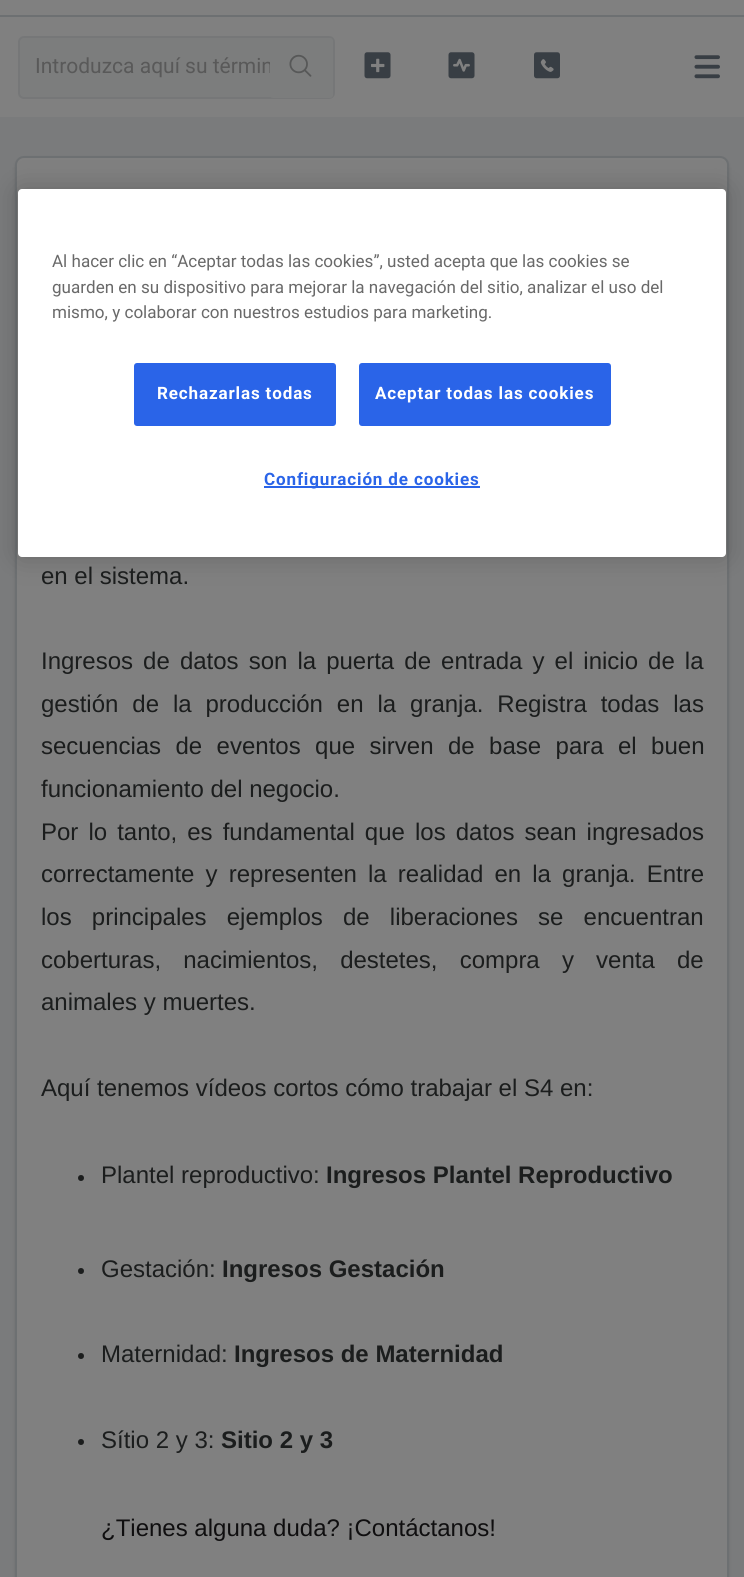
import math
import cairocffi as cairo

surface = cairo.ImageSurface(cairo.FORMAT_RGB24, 744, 1577)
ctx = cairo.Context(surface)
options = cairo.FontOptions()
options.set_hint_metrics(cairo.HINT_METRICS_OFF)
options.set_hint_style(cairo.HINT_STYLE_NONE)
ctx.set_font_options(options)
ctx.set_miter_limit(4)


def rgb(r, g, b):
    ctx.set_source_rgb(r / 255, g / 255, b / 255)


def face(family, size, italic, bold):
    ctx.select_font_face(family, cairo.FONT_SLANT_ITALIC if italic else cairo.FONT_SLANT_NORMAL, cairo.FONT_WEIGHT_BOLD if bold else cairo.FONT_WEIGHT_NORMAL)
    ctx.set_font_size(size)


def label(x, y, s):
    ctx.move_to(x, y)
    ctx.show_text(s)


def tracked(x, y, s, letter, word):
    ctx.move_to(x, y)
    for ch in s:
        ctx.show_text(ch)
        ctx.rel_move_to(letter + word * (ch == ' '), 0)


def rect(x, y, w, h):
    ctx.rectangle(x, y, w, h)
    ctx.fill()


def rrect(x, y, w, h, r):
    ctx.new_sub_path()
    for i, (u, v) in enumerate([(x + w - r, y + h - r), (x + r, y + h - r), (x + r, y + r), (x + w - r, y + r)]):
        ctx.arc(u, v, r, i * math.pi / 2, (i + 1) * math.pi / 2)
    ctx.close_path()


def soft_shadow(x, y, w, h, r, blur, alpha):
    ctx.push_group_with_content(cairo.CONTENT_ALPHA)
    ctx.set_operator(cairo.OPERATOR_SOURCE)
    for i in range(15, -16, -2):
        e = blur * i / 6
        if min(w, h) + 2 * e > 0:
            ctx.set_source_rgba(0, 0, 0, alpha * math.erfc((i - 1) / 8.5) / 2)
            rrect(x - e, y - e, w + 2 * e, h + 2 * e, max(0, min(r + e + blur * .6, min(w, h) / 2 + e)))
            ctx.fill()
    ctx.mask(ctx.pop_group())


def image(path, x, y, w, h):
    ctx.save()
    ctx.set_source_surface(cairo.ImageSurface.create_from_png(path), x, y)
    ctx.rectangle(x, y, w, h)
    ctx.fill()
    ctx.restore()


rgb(122, 123, 124)
ctx.paint()
rgb(128, 128, 128)
rect(0, 0, 744, 15)
rgb(109, 112, 114)
rect(0, 15, 744, 2)
rgb(128, 128, 128)
rect(0, 17, 744, 100)
image('image0.png', 694, 55, 26, 24)
rgb(124, 125, 125)
rrect(19, 37, 315, 61, 5)
ctx.fill_preserve()
rgb(118, 119, 120)
ctx.stroke()
face('Roboto', 21, 0, 0)
rgb(89, 89, 89)
label(35, 73, 'Introduzca aquí su términ')
rgb(124, 125, 125)
rrect(270, 38, 63, 60, 3)
ctx.fill()
image('image1.png', 289, 54, 23, 23)
image('image2.png', 364, 52, 27, 27)
image('image3.png', 448, 52, 27, 27)
image('image4.png', 534, 52, 26, 27)
rgb(32, 32, 34)
soft_shadow(15, 158, 714, 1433, 9, 1.5, 0.15)
rgb(128, 128, 128)
rrect(16, 157, 712, 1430, 8)
ctx.fill_preserve()
rgb(109, 112, 114)
ctx.stroke()
rgb(0, 0, 0)
soft_shadow(18, 189, 708, 368, 4, 13.5, 0.2)
rgb(255, 255, 255)
rrect(18, 189, 708, 368, 4)
ctx.fill()
face('Roboto', 17.05, 0, 0)
rgb(105, 105, 105)
label(52, 267, 'Al hacer clic en “Aceptar todas las cookies”, usted acepta que las cookies se')
label(52, 293, 'guarden en su dispositivo para mejorar la navegación del sitio, analizar el uso del')
label(52, 318, 'mismo, y colaborar con nuestros estudios para marketing.')
rgb(42, 100, 232)
rrect(135, 364, 200, 61, 2)
ctx.fill_preserve()
ctx.stroke()
face('Roboto', 17.05, 0, 1)
rgb(255, 255, 255)
tracked(157, 399, 'Rechazarlas todas', 0.85, 0)
rgb(42, 100, 232)
rrect(360, 364, 250, 61, 2)
ctx.fill_preserve()
ctx.stroke()
rgb(255, 255, 255)
tracked(375, 399, 'Aceptar todas las cookies', 0.85, 0)
rgb(42, 100, 232)
rect(264, 486, 216, 2)
tracked(264, 485, 'Configuración de cookies', 0.85, 0)
face('Liberation Sans', 24, 0, 0)
rgb(27, 29, 29)
label(41, 584, 'en el sistema.')
tracked(41, 669, 'Ingresos de datos son la puerta de entrada y el inicio de la', 0, 3.4)
tracked(41, 712, 'gestión de la producción en la granja. Registra todas las', 0, 7.25)
tracked(41, 754, 'secuencias de eventos que sirven de base para el buen', 0, 7.75)
label(41, 797, 'funcionamiento del negocio.')
tracked(41, 840, 'Por lo tanto, es fundamental que los datos sean ingresados', 0, 3.4)
tracked(41, 882, 'correctamente y representen la realidad en la granja. Entre', 0, 4.5)
tracked(41, 925, 'los principales ejemplos de liberaciones se encuentran', 0, 13.5)
tracked(41, 968, 'coberturas, nacimientos, destetes, compra y venta de', 0, 15.5)
label(41, 1010, 'animales y muertes.')
label(41, 1096, 'Aquí tenemos vídeos cortos cómo trabajar el S4 en:')
ctx.new_path()
ctx.arc(81, 1178, 3, 0, 2 * math.pi)
ctx.fill()
label(101, 1183, 'Plantel reproductivo:')
face('Liberation Sans', 24, 0, 1)
label(326, 1183, 'Ingresos Plantel Reproductivo')
ctx.new_path()
ctx.arc(81, 1271, 3, 0, 2 * math.pi)
ctx.fill()
face('Liberation Sans', 24, 0, 0)
label(101, 1277, 'Gestación:')
face('Liberation Sans', 24, 0, 1)
label(222, 1277, 'Ingresos Gestación')
ctx.new_path()
ctx.arc(81, 1356, 3, 0, 2 * math.pi)
ctx.fill()
face('Liberation Sans', 24, 0, 0)
label(101, 1362, 'Maternidad:')
face('Liberation Sans', 24, 0, 1)
label(234, 1362, 'Ingresos de Maternidad')
ctx.new_path()
ctx.arc(81, 1442, 3, 0, 2 * math.pi)
ctx.fill()
face('Liberation Sans', 24, 0, 0)
label(101, 1448, 'Sítio 2 y 3:')
face('Liberation Sans', 24, 0, 1)
label(221, 1448, 'Sitio 2 y 3')
face('Liberation Sans', 24, 0, 0)
rgb(15, 14, 15)
label(101, 1536, '¿Tienes alguna duda? ¡Contáctanos!')
surface.write_to_png('render.png')
